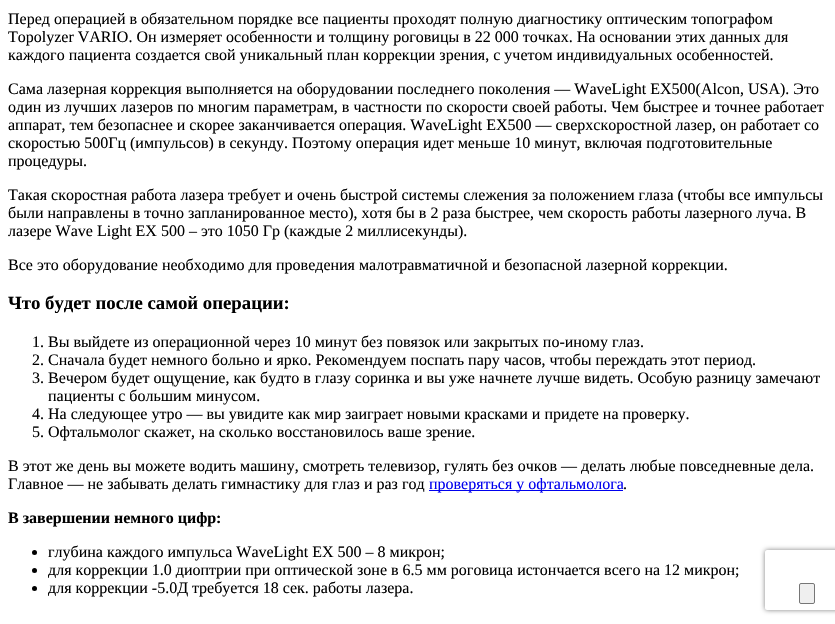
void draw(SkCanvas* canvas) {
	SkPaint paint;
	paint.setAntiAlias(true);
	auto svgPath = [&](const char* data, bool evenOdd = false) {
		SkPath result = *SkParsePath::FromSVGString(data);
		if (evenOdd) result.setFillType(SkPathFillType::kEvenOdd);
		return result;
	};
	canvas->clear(0xffffffff);
	SkFont f1(fontMgr->matchFamilyStyle("Liberation Serif", SkFontStyle::Normal()), 16);
	f1.setSubpixel(true);
	paint.setColor(0xff000000);
	canvas->drawString("Перед операцией в обязательном порядке все пациенты проходят полную диагностику оптическим топографом", 8, 24, f1, paint);
	canvas->drawString("Topolyzer VARIO. Он измеряет особенности и толщину роговицы в 22 000 точках. На основании этих данных для", 8, 42, f1, paint);
	canvas->drawString("каждого пациента создается свой уникальный план коррекции зрения, с учетом индивидуальных особенностей.", 8, 60, f1, paint);
	canvas->drawString("Сама лазерная коррекция выполняется на оборудовании последнего поколения — WaveLight EX500(Alcon, USA). Это", 8, 94, f1, paint);
	canvas->drawString("один из лучших лазеров по многим параметрам, в частности по скорости своей работы. Чем быстрее и точнее работает", 8, 112, f1, paint);
	canvas->drawString("аппарат, тем безопаснее и скорее заканчивается операция. WaveLight EX500 — сверхскоростной лазер, он работает со", 8, 130, f1, paint);
	canvas->drawString("скоростью 500Гц (импульсов) в секунду. Поэтому операция идет меньше 10 минут, включая подготовительные", 8, 148, f1, paint);
	canvas->drawString("процедуры.", 8, 166, f1, paint);
	canvas->drawString("Такая скоростная работа лазера требует и очень быстрой системы слежения за положением глаза (чтобы все импульсы", 8, 200, f1, paint);
	canvas->drawString("были направлены в точно запланированное место), хотя бы в 2 раза быстрее, чем скорость работы лазерного луча. В", 8, 218, f1, paint);
	canvas->drawString("лазере Wave Light EX 500 – это 1050 Гр (каждые 2 миллисекунды).", 8, 236, f1, paint);
	canvas->drawString("Все это оборудование необходимо для проведения малотравматичной и безопасной лазерной коррекции.", 8, 270, f1, paint);
	SkFont f2(fontMgr->matchFamilyStyle("Liberation Serif", SkFontStyle::Bold()), 18.75);
	f2.setSubpixel(true);
	canvas->drawString("Что будет после самой операции:", 8, 309, f2, paint);
	canvas->drawString("1. Вы выйдете из операционной через 10 минут без повязок или закрытых по-иному глаз.", 32, 347, f1, paint);
	canvas->drawString("2. Сначала будет немного больно и ярко. Рекомендуем поспать пару часов, чтобы переждать этот период.", 32, 365, f1, paint);
	canvas->drawString("3. Вечером будет ощущение, как будто в глазу соринка и вы уже начнете лучше видеть. Особую разницу замечают", 32, 383, f1, paint);
	canvas->drawString("пациенты с большим минусом.", 48, 401, f1, paint);
	canvas->drawString("4. На следующее утро — вы увидите как мир заиграет новыми красками и придете на проверку.", 32, 419, f1, paint);
	canvas->drawString("5. Офтальмолог скажет, на сколько восстановилось ваше зрение.", 32, 437, f1, paint);
	canvas->drawString("В этот же день вы можете водить машину, смотреть телевизор, гулять без очков — делать любые повседневные дела.", 8, 471, f1, paint);
	canvas->drawString("Главное — не забывать делать гимнастику для глаз и раз год", 8, 489, f1, paint);
	paint.setColor(0xff0000ee);
	canvas->drawRect(SkRect::MakeXYWH(429, 490, 194, 1), paint);
	canvas->drawString("проверяться у офтальмолога", 429, 489, f1, paint);
	paint.setColor(0xff000000);
	canvas->drawString(".", 623, 489, f1, paint);
	SkFont f3(fontMgr->matchFamilyStyle("Liberation Serif", SkFontStyle::Bold()), 16);
	f3.setSubpixel(true);
	canvas->drawString("В завершении немного цифр:", 8, 523, f3, paint);
	canvas->drawCircle(34.5, 552.5, 2.5, paint);
	canvas->drawString("глубина каждого импульса WaveLight EX 500 – 8 микрон;", 48, 557, f1, paint);
	canvas->drawCircle(34.5, 570.5, 2.5, paint);
	canvas->drawString("для коррекции 1.0 диоптрии при оптической зоне в 6.5 мм роговица истончается всего на 12 микрон;", 48, 575, f1, paint);
	canvas->drawCircle(34.5, 588.5, 2.5, paint);
	canvas->drawString("для коррекции -5.0Д требуется 18 сек. работы лазера.", 48, 593, f1, paint);
	paint.setColor(0xffefefef);
	canvas->drawRoundRect(SkRect::MakeXYWH(799.5, 583.5, 15, 20), 1.5, 1.5, paint);
	paint.setStroke(true);
	paint.setStrokeWidth(1);
	paint.setColor(0xff767676);
	canvas->drawRoundRect(SkRect::MakeXYWH(799.5, 583.5, 15, 20), 1.5, 1.5, paint);
	canvas->save();
	canvas->clipPath(svgPath("M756 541H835V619H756ZM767 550H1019C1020 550 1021 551 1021 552V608C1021 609 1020 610 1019 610H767C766 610 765 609 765 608V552C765 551 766 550 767 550Z", true), true);
	paint.setStroke(false);
	paint.setColor(0xff808080);
	paint.setMaskFilter(SkMaskFilter::MakeBlur(kNormal_SkBlurStyle, 2.5));
	canvas->drawRoundRect(SkRect::MakeXYWH(765, 550, 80, 60), 2, 2, paint);
	paint.setMaskFilter(nullptr);
	canvas->restore();
}
